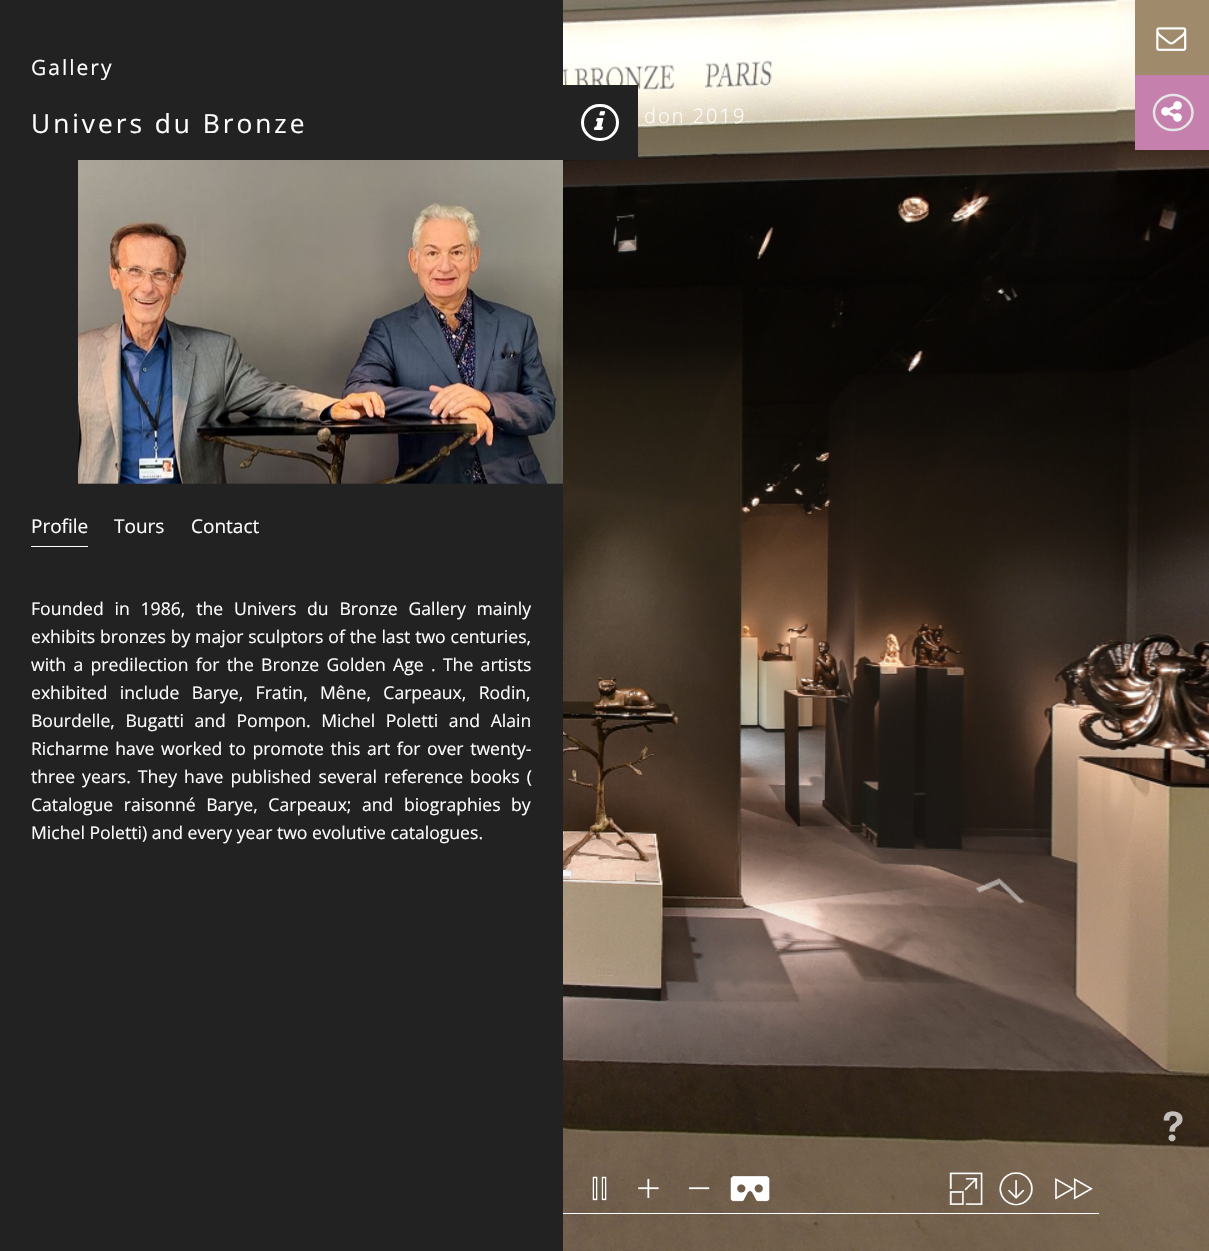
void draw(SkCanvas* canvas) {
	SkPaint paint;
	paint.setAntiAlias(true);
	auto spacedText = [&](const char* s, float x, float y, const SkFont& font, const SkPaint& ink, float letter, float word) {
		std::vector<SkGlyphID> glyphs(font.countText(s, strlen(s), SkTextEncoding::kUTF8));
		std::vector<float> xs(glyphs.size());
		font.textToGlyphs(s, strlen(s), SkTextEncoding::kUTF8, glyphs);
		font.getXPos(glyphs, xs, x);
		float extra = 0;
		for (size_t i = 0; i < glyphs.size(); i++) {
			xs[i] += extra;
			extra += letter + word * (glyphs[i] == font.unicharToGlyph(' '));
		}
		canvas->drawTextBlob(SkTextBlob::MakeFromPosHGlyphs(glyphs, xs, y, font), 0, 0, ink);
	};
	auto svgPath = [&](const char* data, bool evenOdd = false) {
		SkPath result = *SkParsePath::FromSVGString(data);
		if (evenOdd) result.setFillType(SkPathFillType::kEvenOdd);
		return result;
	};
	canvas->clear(0xffffffff);
	canvas->drawImageRect(SkImages::DeferredFromEncodedData(SkData::MakeFromFileName("img1.png")), SkRect::MakeXYWH(563, 0, 646, 1251), SkSamplingOptions());
	canvas->drawImageRect(SkImages::DeferredFromEncodedData(SkData::MakeFromFileName("img2.png")), SkRect::MakeXYWH(592, 1176, 15, 25), SkSamplingOptions());
	canvas->drawImageRect(SkImages::DeferredFromEncodedData(SkData::MakeFromFileName("img3.png")), SkRect::MakeXYWH(638, 1178, 21, 20), SkSamplingOptions());
	canvas->drawImageRect(SkImages::DeferredFromEncodedData(SkData::MakeFromFileName("img4.png")), SkRect::MakeXYWH(688, 1187, 22, 3), SkSamplingOptions());
	canvas->drawImageRect(SkImages::DeferredFromEncodedData(SkData::MakeFromFileName("img5.png")), SkRect::MakeXYWH(730, 1176, 40, 26), SkSamplingOptions());
	canvas->drawImageRect(SkImages::DeferredFromEncodedData(SkData::MakeFromFileName("img6.png")), SkRect::MakeXYWH(949, 1172, 34, 33), SkSamplingOptions());
	canvas->drawImageRect(SkImages::DeferredFromEncodedData(SkData::MakeFromFileName("img7.png")), SkRect::MakeXYWH(999, 1172, 34, 34), SkSamplingOptions());
	canvas->drawImageRect(SkImages::DeferredFromEncodedData(SkData::MakeFromFileName("img8.png")), SkRect::MakeXYWH(1055, 1178, 38, 22), SkSamplingOptions());
	paint.setColor(0xffffffff);
	canvas->drawRect(SkRect::MakeXYWH(563, 1213, 536, 1), paint);
	paint.setColor(0xff222222);
	canvas->drawRect(SkRect::MakeXYWH(0, 0, 563, 1251), paint);
	SkFont f1(fontMgr->matchFamilyStyle("Open Sans", SkFontStyle::Normal()), 21);
	f1.setSubpixel(true);
	paint.setColor(0xffffffff);
	spacedText("Gallery", 31, 75, f1, paint, 2, 0);
	paint.setColor(0xff222222);
	canvas->drawRect(SkRect::MakeXYWH(563, 85, 75, 75), paint);
	SkFont f2(fontMgr->matchFamilyStyle("Open Sans", SkFontStyle::Normal()), 26.25);
	f2.setSubpixel(true);
	paint.setColor(0xffffffff);
	spacedText("Univers du Bronze", 31, 133, f2, paint, 3, 0);
	paint.setStroke(true);
	paint.setStrokeWidth(3);
	canvas->drawRoundRect(SkRect::MakeXYWH(582.5, 105.5, 35, 34), 17, 17, paint);
	canvas->drawImageRect(SkImages::DeferredFromEncodedData(SkData::MakeFromFileName("img9.png")), SkRect::MakeXYWH(594, 111, 12, 19), SkSamplingOptions());
	canvas->drawImageRect(SkImages::DeferredFromEncodedData(SkData::MakeFromFileName("img10.png")), SkRect::MakeXYWH(78, 160, 485, 324), SkSamplingOptions());
	paint.setStroke(false);
	canvas->drawRect(SkRect::MakeXYWH(31, 546, 57, 1), paint);
	SkFont f3(fontMgr->matchFamilyStyle("Open Sans", SkFontStyle::Normal()), 19);
	f3.setSubpixel(true);
	canvas->drawString("Profile", 31, 533, f3, paint);
	canvas->drawString("Tours", 114, 533, f3, paint);
	canvas->drawString("Contact", 191, 533, f3, paint);
	SkFont f4(fontMgr->matchFamilyStyle("Open Sans", SkFontStyle::Normal()), 17.6);
	f4.setSubpixel(true);
	spacedText("Founded in 1986, the Univers du Bronze Gallery mainly", 31, 615, f4, paint, 0, 6.25);
	spacedText("exhibits bronzes by major sculptors of the last two centuries,", 31, 643, f4, paint, 0, 0.25);
	spacedText("with a predilection for the Bronze Golden Age . The artists", 31, 671, f4, paint, 0, 2.75);
	spacedText("exhibited include Barye, Fratin, Mêne, Carpeaux, Rodin,", 31, 699, f4, paint, 0, 7.75);
	spacedText("Bourdelle, Bugatti and Pompon. Michel Poletti and Alain", 31, 727, f4, paint, 0, 6);
	spacedText("Richarme have worked to promote this art for over twenty-", 31, 755, f4, paint, 0, 2);
	spacedText("three years. They have published several reference books (", 31, 783, f4, paint, 0, 2.5);
	spacedText("Catalogue raisonné Barye, Carpeaux;", 31, 811, f4, paint, 0, 6);
	spacedText("and biographies by", 362, 811, f4, paint, 0, 6);
	canvas->drawString("Michel Poletti) and every year two evolutive catalogues.", 31, 839, f4, paint);
	SkFont f5(fontMgr->matchFamilyStyle("Open Sans", SkFontStyle(300, SkFontStyle::kNormal_Width, SkFontStyle::kUpright_Slant)), 20);
	f5.setSubpixel(true);
	spacedText("don 2019", 644, 123, f5, paint, 2, 0);
	paint.setColor(0xff9f8b6c);
	canvas->drawRect(SkRect::MakeXYWH(1135, 0, 74, 75), paint);
	canvas->drawImageRect(SkImages::DeferredFromEncodedData(SkData::MakeFromFileName("img11.png")), SkRect::MakeXYWH(1156, 27, 31, 24), SkSamplingOptions());
	paint.setColor(0xffdc8fc1);
	canvas->drawRect(SkRect::MakeXYWH(1135, 75, 74, 75), paint);
	paint.setStroke(true);
	paint.setStrokeWidth(2.5);
	paint.setColor(0xffffffff);
	canvas->drawPath(svgPath("M1173 95C1184 95 1192.5 103 1192.5 112.5C1192.5 122 1184 130 1173 130C1162.5 130 1154 122 1154 112.5C1154 103 1162.5 95 1173 95Z"), paint);
	paint.setStroke(false);
	paint.setColor(0x1a000000);
	canvas->drawRect(SkRect::MakeXYWH(1135, 75, 74, 75), paint);
	canvas->drawImageRect(SkImages::DeferredFromEncodedData(SkData::MakeFromFileName("img12.png")), SkRect::MakeXYWH(1161, 101, 21, 21), SkSamplingOptions());
	canvas->drawImageRect(SkImages::DeferredFromEncodedData(SkData::MakeFromFileName("img13.png")), SkRect::MakeXYWH(1163, 1111, 20, 31), SkSamplingOptions());
}
